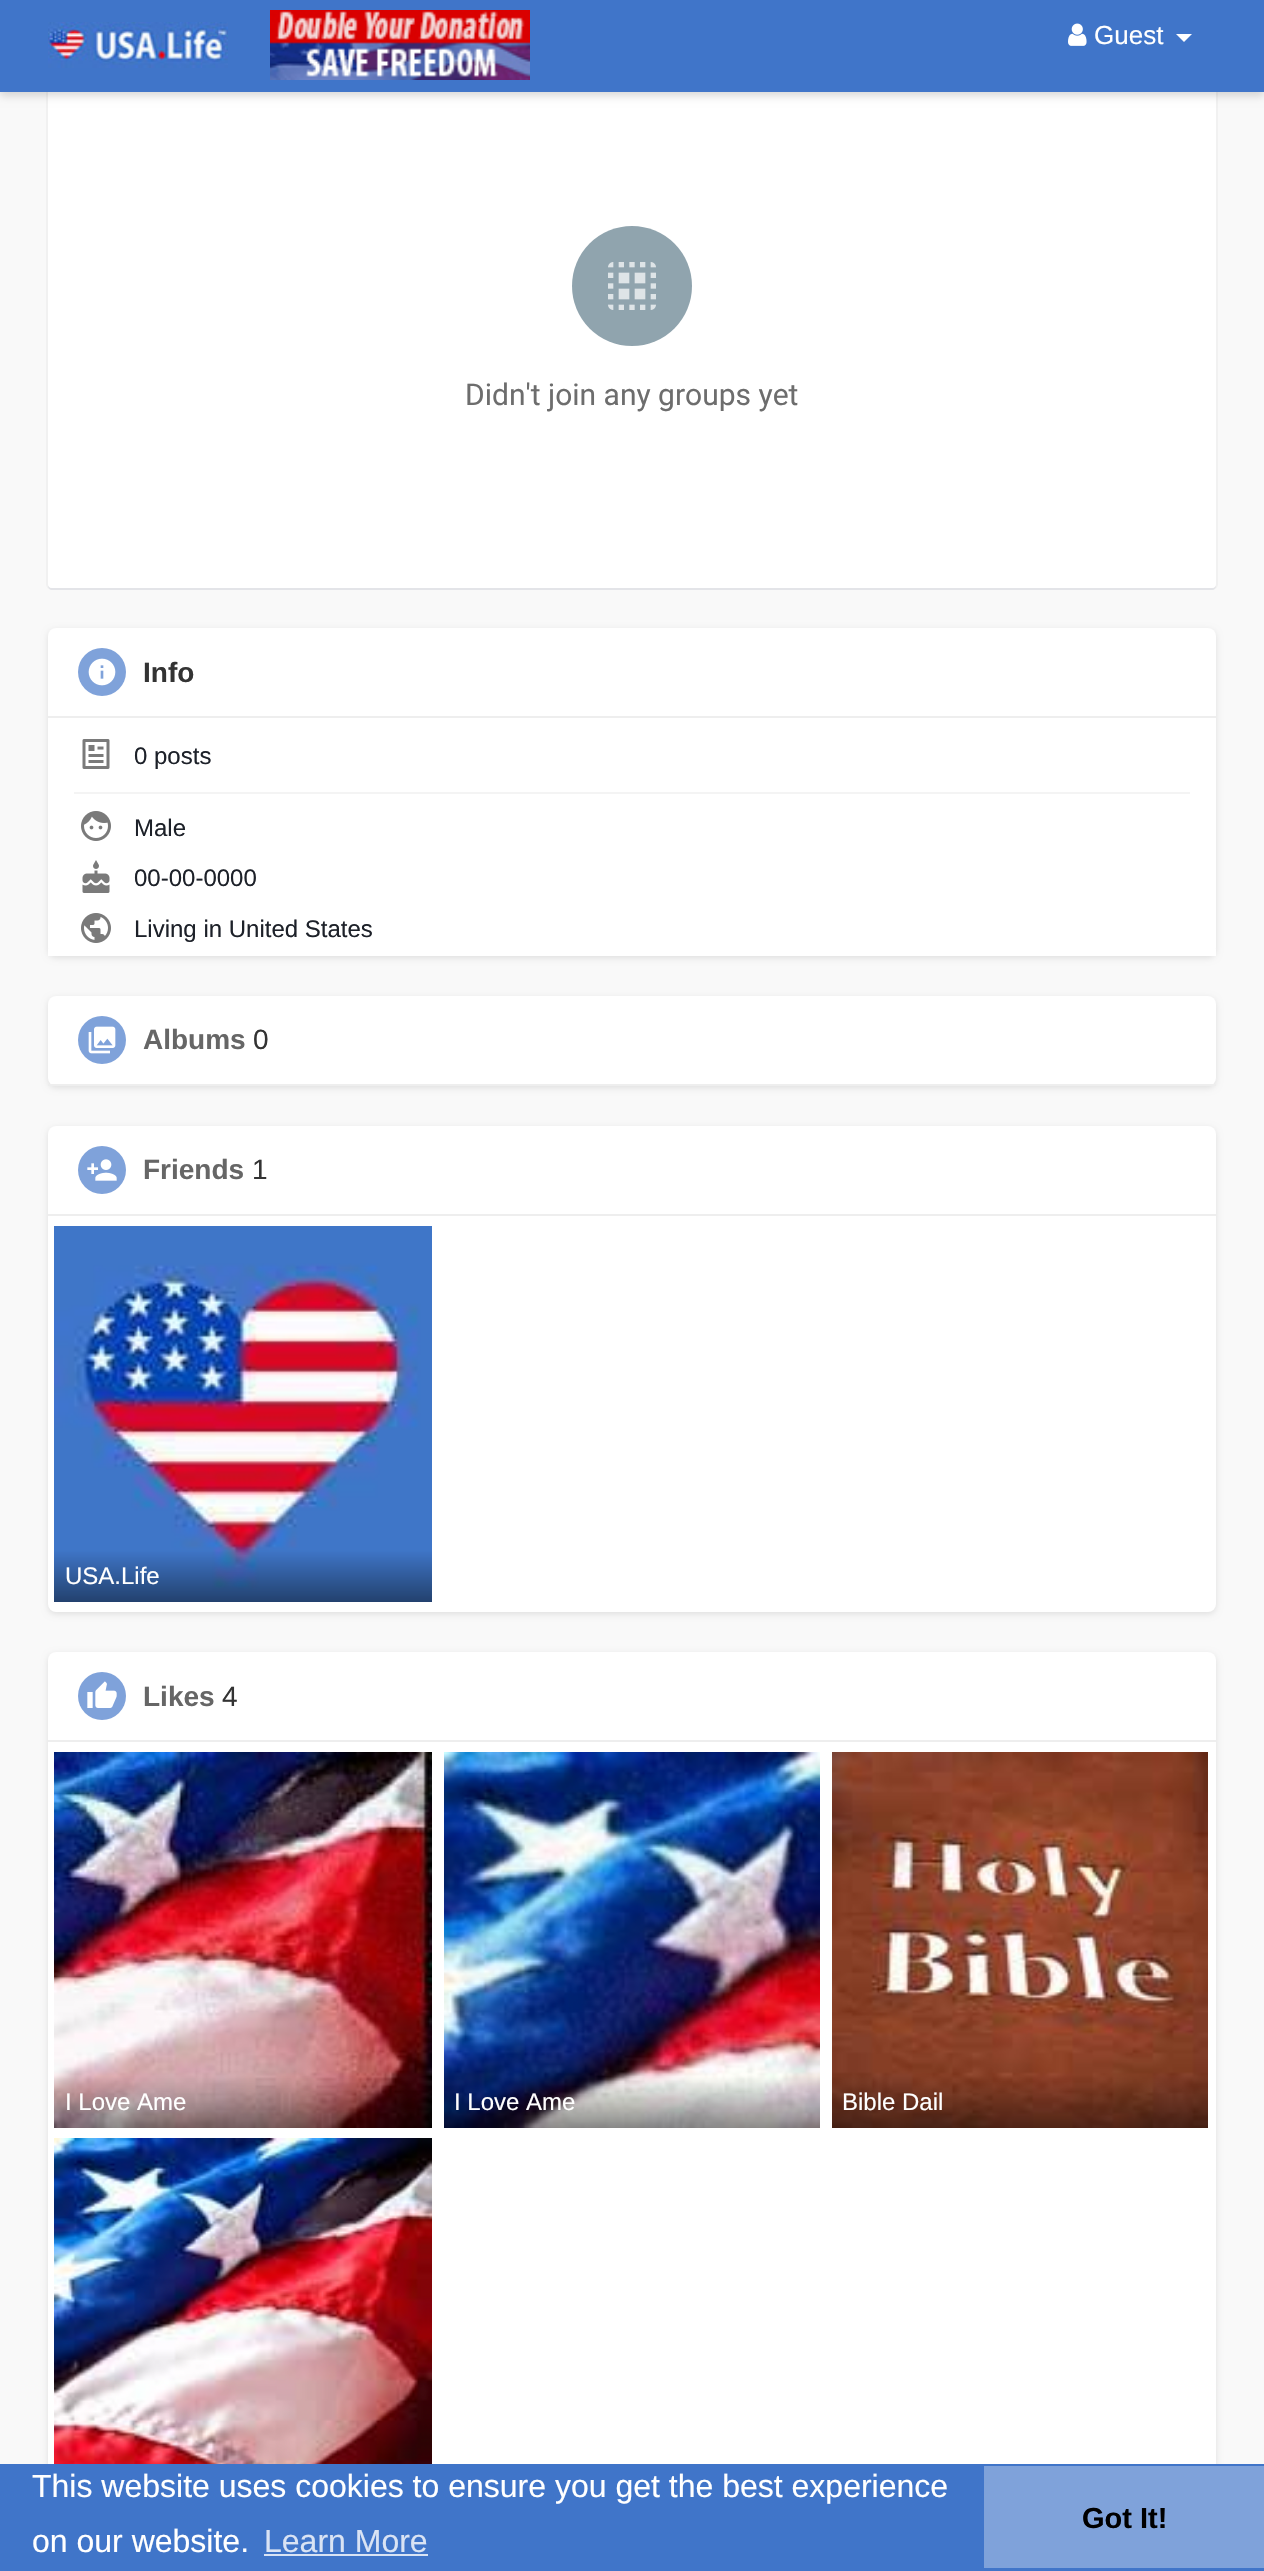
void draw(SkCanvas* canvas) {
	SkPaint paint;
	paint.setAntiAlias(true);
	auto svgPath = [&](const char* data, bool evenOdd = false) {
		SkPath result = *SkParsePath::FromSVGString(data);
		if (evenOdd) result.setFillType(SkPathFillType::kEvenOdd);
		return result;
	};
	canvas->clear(0xfff9f9f9);
	paint.setStroke(true);
	paint.setStrokeWidth(2);
	paint.setColor(0xfff1f1f1);
	canvas->drawRoundRect(SkRect::MakeXYWH(47, 55, 1170, 534), 5, 5, paint);
	paint.setStroke(false);
	paint.setColor(0xffe3e4e8);
	canvas->drawPath(svgPath("M48 584V586C48 588 50 590 52 590H1212C1214 590 1216 588 1216 586V584C1216 586 1214 588 1212 588H52C50 588 48 586 48 584Z"), paint);
	paint.setColor(0xffffffff);
	canvas->drawRoundRect(SkRect::MakeXYWH(48, 56, 1168, 532), 4, 4, paint);
	paint.setColor(0x26000000);
	paint.setMaskFilter(SkMaskFilter::MakeBlur(kNormal_SkBlurStyle, 4));
	canvas->drawRect(SkRect::MakeXYWH(0, 4, 1264, 92), paint);
	paint.setMaskFilter(nullptr);
	paint.setColor(0xff4075c9);
	canvas->drawRect(SkRect::MakeXYWH(0, 0, 1264, 92), paint);
	canvas->drawImageRect(SkImages::DeferredFromEncodedData(SkData::MakeFromFileName("img1.png")), SkRect::MakeXYWH(48, 22, 180, 46), SkSamplingOptions());
	canvas->drawImageRect(SkImages::DeferredFromEncodedData(SkData::MakeFromFileName("img2.png")), SkRect::MakeXYWH(270, 10, 260, 70), SkSamplingOptions());
	canvas->drawImageRect(SkImages::DeferredFromEncodedData(SkData::MakeFromFileName("img3.png")), SkRect::MakeXYWH(1068, 23, 19, 23), SkSamplingOptions());
	SkFont f1(fontMgr->matchFamilyStyle("Liberation Sans", SkFontStyle::Normal()), 26);
	f1.setSubpixel(true);
	paint.setColor(0xffffffff);
	canvas->drawString("Guest", 1094, 44, f1, paint);
	canvas->drawPath(svgPath("M1176 34H1192L1184 42Z"), paint);
	paint.setColor(0xff90a4ae);
	canvas->drawCircle(632, 286, 60, paint);
	canvas->drawImageRect(SkImages::DeferredFromEncodedData(SkData::MakeFromFileName("img4.png")), SkRect::MakeXYWH(608, 262, 48, 48), SkSamplingOptions());
	SkFont f2(fontMgr->matchFamilyStyle("Roboto", SkFontStyle::Normal()), 30);
	f2.setSubpixel(true);
	paint.setColor(0xff6d6d6d);
	canvas->drawString("Didn't join any groups yet", 465, 405, f2, paint);
	paint.setColor(0x1a000000);
	paint.setMaskFilter(SkMaskFilter::MakeBlur(kNormal_SkBlurStyle, 3));
	canvas->drawRoundRect(SkRect::MakeXYWH(48, 630, 1168, 328), 8, 8, paint);
	paint.setMaskFilter(nullptr);
	paint.setColor(0xffffffff);
	canvas->drawRoundRect(SkRect::MakeXYWH(48, 628, 1168, 328), 8, 8, paint);
	paint.setColor(0xffeeeeee);
	canvas->drawRect(SkRect::MakeXYWH(48, 716, 1168, 2), paint);
	paint.setColor(0xff7fa2da);
	canvas->drawCircle(102, 672, 24, paint);
	canvas->drawImageRect(SkImages::DeferredFromEncodedData(SkData::MakeFromFileName("img5.png")), SkRect::MakeXYWH(88, 658, 28, 28), SkSamplingOptions());
	SkFont f3(fontMgr->matchFamilyStyle("Liberation Sans", SkFontStyle::Bold()), 28);
	f3.setSubpixel(true);
	paint.setColor(0xff333333);
	canvas->drawString("Info", 143, 682, f3, paint);
	canvas->drawImageRect(SkImages::DeferredFromEncodedData(SkData::MakeFromFileName("img6.png")), SkRect::MakeXYWH(82, 739, 28, 30), SkSamplingOptions());
	SkFont f4(fontMgr->matchFamilyStyle("Liberation Sans", SkFontStyle::Normal()), 24);
	f4.setSubpixel(true);
	paint.setColor(0xff1d2129);
	canvas->drawString("0 posts", 134, 764, f4, paint);
	paint.setColor(0xfff4f4f4);
	canvas->drawRect(SkRect::MakeXYWH(74, 792, 1116, 2), paint);
	canvas->drawImageRect(SkImages::DeferredFromEncodedData(SkData::MakeFromFileName("img7.png")), SkRect::MakeXYWH(81, 811, 30, 30), SkSamplingOptions());
	paint.setColor(0xff1d2129);
	canvas->drawString("Male", 134, 836, f4, paint);
	canvas->drawImageRect(SkImages::DeferredFromEncodedData(SkData::MakeFromFileName("img8.png")), SkRect::MakeXYWH(82, 860, 28, 33), SkSamplingOptions());
	canvas->drawString("00-00-0000", 134, 886, f4, paint);
	paint.setColor(0xffffffff);
	canvas->drawRect(SkRect::MakeXYWH(48, 949, 1168, 7), paint);
	canvas->drawImageRect(SkImages::DeferredFromEncodedData(SkData::MakeFromFileName("img9.png")), SkRect::MakeXYWH(81, 913, 30, 30), SkSamplingOptions());
	paint.setColor(0xff1d2129);
	canvas->drawString("Living in United States", 134, 937, f4, paint);
	paint.setColor(0x1a000000);
	paint.setMaskFilter(SkMaskFilter::MakeBlur(kNormal_SkBlurStyle, 3));
	canvas->drawRoundRect(SkRect::MakeXYWH(48, 998, 1168, 90), 8, 8, paint);
	paint.setMaskFilter(nullptr);
	paint.setColor(0xffffffff);
	canvas->drawRoundRect(SkRect::MakeXYWH(48, 996, 1168, 90), 8, 8, paint);
	paint.setColor(0xffeeeeee);
	canvas->drawRect(SkRect::MakeXYWH(48, 1084, 1168, 2), paint);
	paint.setColor(0xff7fa2da);
	canvas->drawCircle(102, 1040, 24, paint);
	canvas->drawImageRect(SkImages::DeferredFromEncodedData(SkData::MakeFromFileName("img10.png")), SkRect::MakeXYWH(88, 1026, 28, 28), SkSamplingOptions());
	paint.setColor(0xff666666);
	canvas->drawString("Albums", 143, 1049, f3, paint);
	SkFont f5(fontMgr->matchFamilyStyle("Liberation Sans", SkFontStyle::Normal()), 28);
	f5.setSubpixel(true);
	paint.setColor(0xff333333);
	canvas->drawString("0", 253, 1049, f5, paint);
	paint.setColor(0x1a000000);
	paint.setMaskFilter(SkMaskFilter::MakeBlur(kNormal_SkBlurStyle, 3));
	canvas->drawRoundRect(SkRect::MakeXYWH(48, 1128, 1168, 486), 8, 8, paint);
	paint.setMaskFilter(nullptr);
	paint.setColor(0xffffffff);
	canvas->drawRoundRect(SkRect::MakeXYWH(48, 1126, 1168, 486), 8, 8, paint);
	paint.setColor(0xffeeeeee);
	canvas->drawRect(SkRect::MakeXYWH(48, 1214, 1168, 2), paint);
	paint.setColor(0xff7fa2da);
	canvas->drawCircle(102, 1170, 24, paint);
	canvas->drawImageRect(SkImages::DeferredFromEncodedData(SkData::MakeFromFileName("img11.png")), SkRect::MakeXYWH(87, 1159, 30, 22), SkSamplingOptions());
	paint.setColor(0xff666666);
	canvas->drawString("Friends", 143, 1179, f3, paint);
	paint.setColor(0xff333333);
	canvas->drawString("1", 252, 1179, f5, paint);
	canvas->drawImageRect(SkImages::DeferredFromEncodedData(SkData::MakeFromFileName("img12.png")), SkRect::MakeXYWH(54, 1226, 378, 376), SkSamplingOptions());
	paint.setColor(0xffffffff);
	canvas->drawString("USA.Life", 65, 1584, f4, paint);
	paint.setColor(0x1a000000);
	paint.setMaskFilter(SkMaskFilter::MakeBlur(kNormal_SkBlurStyle, 3));
	canvas->drawRoundRect(SkRect::MakeXYWH(48, 1654, 1168, 874), 8, 8, paint);
	paint.setMaskFilter(nullptr);
	paint.setColor(0xffffffff);
	canvas->drawRoundRect(SkRect::MakeXYWH(48, 1652, 1168, 874), 8, 8, paint);
	paint.setColor(0xffeeeeee);
	canvas->drawRect(SkRect::MakeXYWH(48, 1740, 1168, 2), paint);
	paint.setColor(0xff7fa2da);
	canvas->drawCircle(102, 1696, 24, paint);
	canvas->drawImageRect(SkImages::DeferredFromEncodedData(SkData::MakeFromFileName("img13.png")), SkRect::MakeXYWH(87, 1681, 30, 27), SkSamplingOptions());
	paint.setColor(0xff666666);
	canvas->drawString("Likes", 143, 1706, f3, paint);
	paint.setColor(0xff333333);
	canvas->drawString("4", 222, 1706, f5, paint);
	canvas->drawImageRect(SkImages::DeferredFromEncodedData(SkData::MakeFromFileName("img14.png")), SkRect::MakeXYWH(54, 1752, 378, 376), SkSamplingOptions());
	paint.setColor(0xffffffff);
	canvas->drawString("I Love Ame", 65, 2110, f4, paint);
	canvas->drawImageRect(SkImages::DeferredFromEncodedData(SkData::MakeFromFileName("img15.png")), SkRect::MakeXYWH(444, 1752, 376, 376), SkSamplingOptions());
	canvas->drawString("I Love Ame", 454, 2110, f4, paint);
	canvas->drawImageRect(SkImages::DeferredFromEncodedData(SkData::MakeFromFileName("img16.png")), SkRect::MakeXYWH(832, 1752, 376, 376), SkSamplingOptions());
	canvas->drawString("Bible Dail", 842, 2110, f4, paint);
	canvas->drawImageRect(SkImages::DeferredFromEncodedData(SkData::MakeFromFileName("img17.png")), SkRect::MakeXYWH(54, 2138, 378, 326), SkSamplingOptions());
	paint.setColor(0xff4075c9);
	canvas->drawRect(SkRect::MakeXYWH(0, 2464, 1264, 107), paint);
	SkFont f6(fontMgr->matchFamilyStyle("Liberation Sans", SkFontStyle::Normal()), 32);
	f6.setSubpixel(true);
	paint.setColor(0xffffffff);
	canvas->drawString("This website uses cookies to ensure you get the best experience", 32, 2497, f6, paint);
	canvas->drawString("on our website.", 32, 2552, f6, paint);
	paint.setColor(0xffd9e3f4);
	canvas->drawString("Learn More", 264, 2552, f6, paint);
	canvas->drawRect(SkRect::MakeXYWH(264, 2554, 164, 2), paint);
	paint.setColor(0xff7fa2da);
	canvas->drawRect(SkRect::MakeXYWH(984, 2466, 280, 102), paint);
	SkFont f7(fontMgr->matchFamilyStyle("Liberation Sans", SkFontStyle::Bold()), 29);
	f7.setSubpixel(true);
	paint.setColor(0xff000000);
	canvas->drawString("Got It!", 1082, 2528, f7, paint);
}
